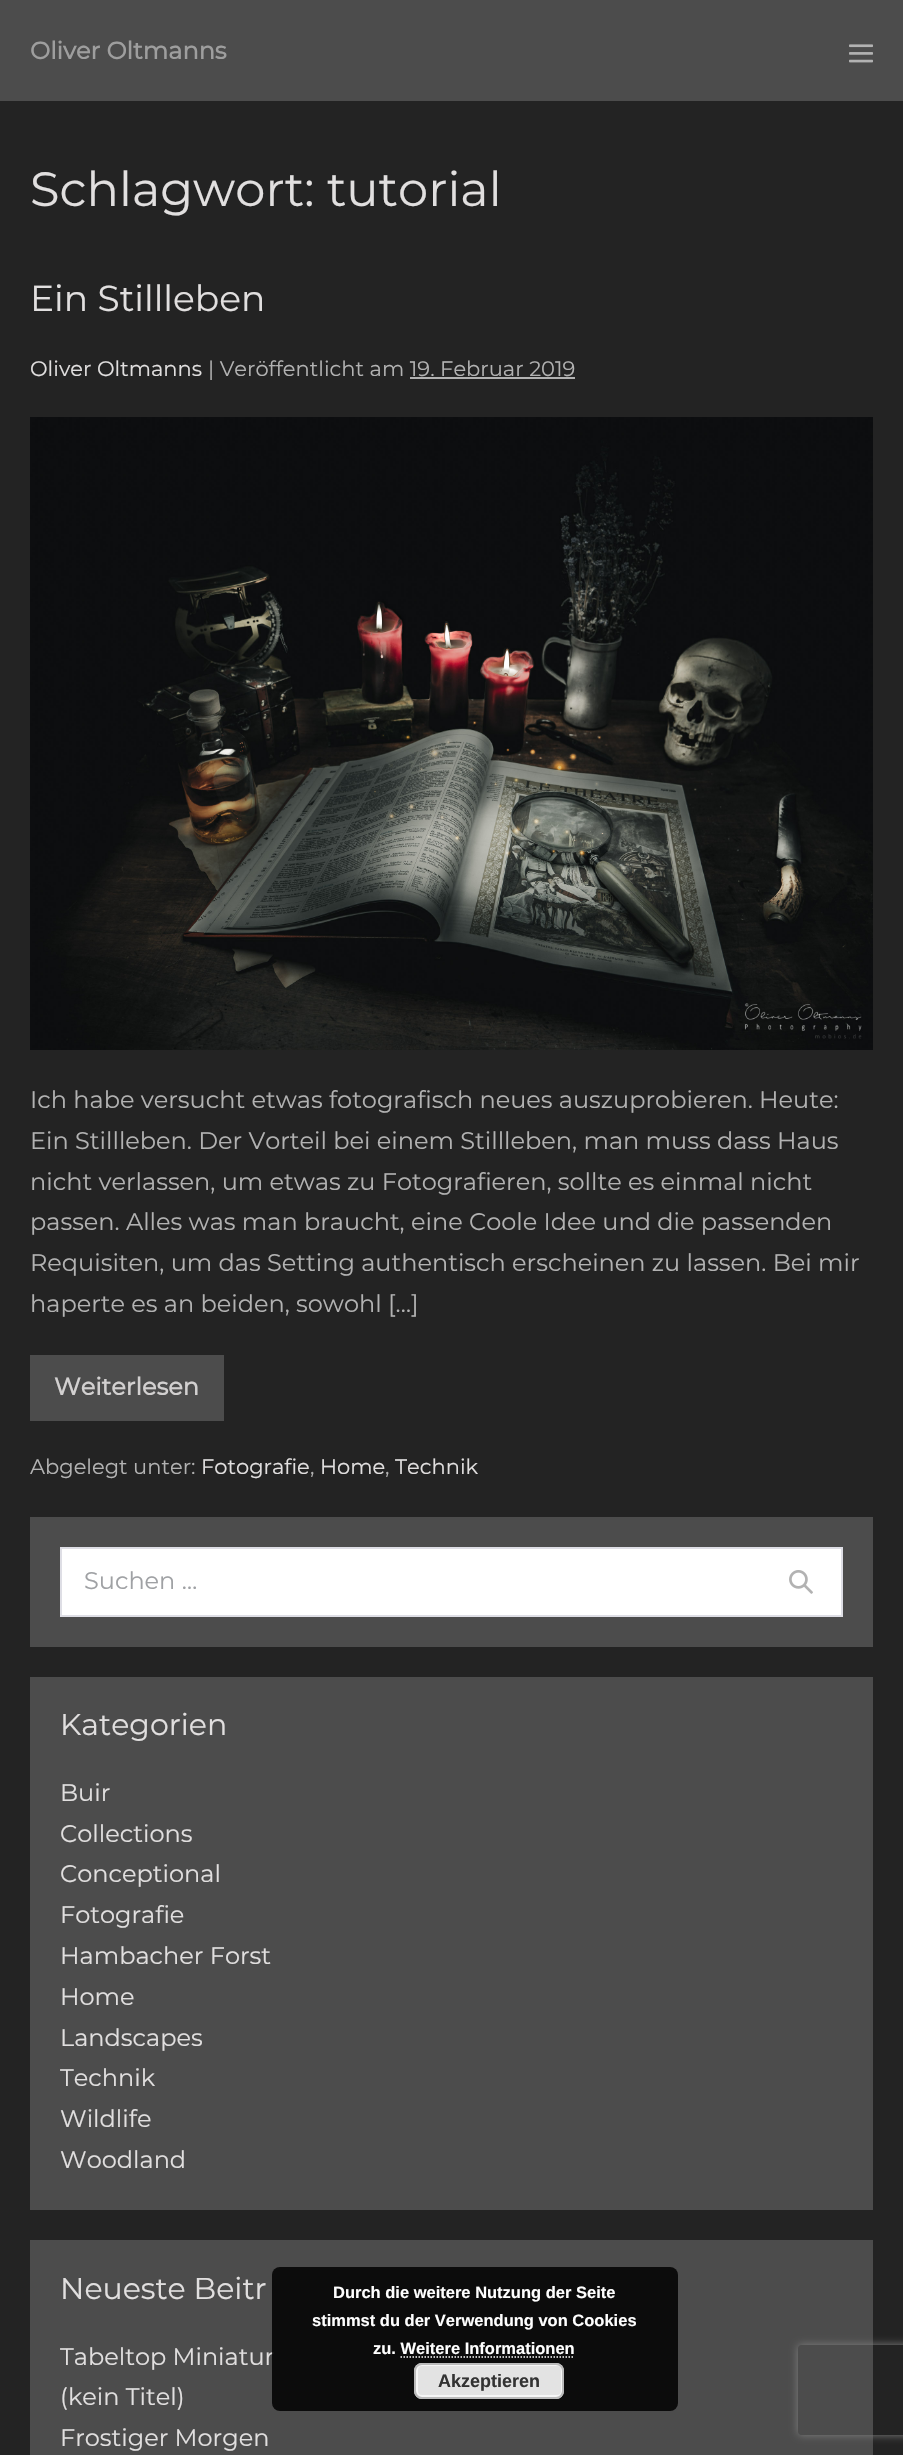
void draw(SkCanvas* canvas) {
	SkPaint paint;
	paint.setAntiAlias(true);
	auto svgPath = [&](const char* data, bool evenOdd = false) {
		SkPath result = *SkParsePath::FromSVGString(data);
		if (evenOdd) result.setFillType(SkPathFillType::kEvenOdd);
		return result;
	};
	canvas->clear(0xff232323);
	paint.setColor(0xff4c4c4c);
	canvas->drawRect(SkRect::MakeXYWH(0, 0, 903, 101), paint);
	SkFont f1(fontMgr->matchFamilyStyle("Montserrat", SkFontStyle::Bold()), 24);
	f1.setSubpixel(true);
	paint.setColor(0xff9e9e9e);
	canvas->drawString("Oliver Oltmanns", 30, 59, f1, paint);
	canvas->drawImageRect(SkImages::DeferredFromEncodedData(SkData::MakeFromFileName("img1.png")), SkRect::MakeXYWH(849, 44, 24, 19), SkSamplingOptions());
	SkFont f2(fontMgr->matchFamilyStyle("Montserrat", SkFontStyle(100, SkFontStyle::kNormal_Width, SkFontStyle::kUpright_Slant)), 48);
	f2.setSubpixel(true);
	paint.setColor(0xffe1dfdf);
	canvas->drawString("Schlagwort: tutorial", 30, 206, f2, paint);
	SkFont f3(fontMgr->matchFamilyStyle("Montserrat", SkFontStyle(100, SkFontStyle::kNormal_Width, SkFontStyle::kUpright_Slant)), 36);
	f3.setSubpixel(true);
	canvas->drawString("Ein Stillleben", 30, 311, f3, paint);
	SkFont f4(fontMgr->matchFamilyStyle("Montserrat", SkFontStyle(100, SkFontStyle::kNormal_Width, SkFontStyle::kUpright_Slant)), 21);
	f4.setSubpixel(true);
	canvas->drawString("Oliver Oltmanns", 30, 376, f4, paint);
	paint.setColor(0xffb2b2b2);
	canvas->drawString("| Veröffentlicht am 19. Februar 2019", 208, 376, f4, paint);
	canvas->drawRect(SkRect::MakeXYWH(410, 377, 165, 2), paint);
	canvas->drawImageRect(SkImages::DeferredFromEncodedData(SkData::MakeFromFileName("img2.png")), SkRect::MakeXYWH(30, 417, 843, 633), SkSamplingOptions());
	SkFont f5(fontMgr->matchFamilyStyle("Montserrat", SkFontStyle(100, SkFontStyle::kNormal_Width, SkFontStyle::kUpright_Slant)), 24);
	f5.setSubpixel(true);
	canvas->drawString("Ich habe versucht etwas fotografisch neues auszuprobieren. Heute:", 30, 1108, f5, paint);
	canvas->drawString("Ein Stillleben. Der Vorteil bei einem Stillleben, man muss dass Haus", 30, 1149, f5, paint);
	canvas->drawString("nicht verlassen, um etwas zu Fotografieren, sollte es einmal nicht", 30, 1190, f5, paint);
	canvas->drawString("passen. Alles was man braucht, eine Coole Idee und die passenden", 30, 1230, f5, paint);
	canvas->drawString("Requisiten, um das Setting authentisch erscheinen zu lassen. Bei mir", 30, 1271, f5, paint);
	canvas->drawString("haperte es an beiden, sowohl […]", 30, 1312, f5, paint);
	paint.setColor(0xff4c4c4c);
	canvas->drawRect(SkRect::MakeXYWH(30, 1355, 194, 66), paint);
	paint.setColor(0xffd2d0d0);
	canvas->drawString("Weiterlesen", 54, 1395, f1, paint);
	paint.setColor(0xffb2b2b2);
	canvas->drawString("Abgelegt unter:", 30, 1474, f4, paint);
	paint.setColor(0xffe1dfdf);
	canvas->drawString("Fotografie", 201, 1474, f4, paint);
	paint.setColor(0xffb2b2b2);
	canvas->drawString(",", 310, 1474, f4, paint);
	paint.setColor(0xffe1dfdf);
	canvas->drawString("Home", 320, 1474, f4, paint);
	paint.setColor(0xffb2b2b2);
	canvas->drawString(",", 385, 1474, f4, paint);
	paint.setColor(0xffe1dfdf);
	canvas->drawString("Technik", 395, 1474, f4, paint);
	paint.setColor(0xff4c4c4c);
	canvas->drawRect(SkRect::MakeXYWH(30, 1517, 843, 130), paint);
	paint.setColor(0xffffffff);
	canvas->drawRect(SkRect::MakeXYWH(61, 1548, 781, 68), paint);
	paint.setStroke(true);
	paint.setStrokeWidth(2);
	paint.setColor(0xffdedee5);
	canvas->drawRect(SkRect::MakeXYWH(61, 1548, 781, 68), paint);
	paint.setStroke(false);
	paint.setColor(0xff9fa1a4);
	canvas->drawString("Suchen …", 84, 1589, f5, paint);
	canvas->drawImageRect(SkImages::DeferredFromEncodedData(SkData::MakeFromFileName("img3.png")), SkRect::MakeXYWH(789, 1570, 24, 24), SkSamplingOptions());
	paint.setColor(0xff4c4c4c);
	canvas->drawRect(SkRect::MakeXYWH(30, 1677, 843, 533), paint);
	SkFont f6(fontMgr->matchFamilyStyle("Montserrat", SkFontStyle(100, SkFontStyle::kNormal_Width, SkFontStyle::kUpright_Slant)), 30);
	f6.setSubpixel(true);
	paint.setColor(0xffe1dfdf);
	canvas->drawString("Kategorien", 60, 1735, f6, paint);
	canvas->drawString("Buir", 60, 1801, f5, paint);
	canvas->drawString("Collections", 60, 1842, f5, paint);
	canvas->drawString("Conceptional", 60, 1882, f5, paint);
	canvas->drawString("Fotografie", 60, 1923, f5, paint);
	canvas->drawString("Hambacher Forst", 60, 1964, f5, paint);
	canvas->drawString("Home", 60, 2005, f5, paint);
	canvas->drawString("Landscapes", 60, 2046, f5, paint);
	canvas->drawString("Technik", 60, 2086, f5, paint);
	canvas->drawString("Wildlife", 60, 2127, f5, paint);
	canvas->drawString("Woodland", 60, 2168, f5, paint);
	paint.setColor(0xff4c4c4c);
	canvas->drawRect(SkRect::MakeXYWH(30, 2240, 843, 215), paint);
	paint.setColor(0xffe1dfdf);
	canvas->drawString("Neueste Beitr", 60, 2299, f6, paint);
	canvas->drawString("Tabeltop Miniatur", 60, 2365, f5, paint);
	canvas->drawString("(kein Titel)", 60, 2405, f5, paint);
	canvas->drawString("Frostiger Morgen", 60, 2446, f5, paint);
	paint.setColor(0xd9000000);
	canvas->drawRoundRect(SkRect::MakeXYWH(272, 2267, 406, 144), 8, 8, paint);
	SkFont f7(fontMgr->matchFamilyStyle("Liberation Sans", SkFontStyle::Bold()), 16.5);
	f7.setSubpixel(true);
	paint.setColor(0xffffffff);
	canvas->drawString("Durch die weitere Nutzung der Seite", 333, 2298, f7, paint);
	canvas->drawString("stimmst du der Verwendung von Cookies", 312, 2326, f7, paint);
	canvas->drawString("zu. Weitere Informationen", 373, 2354, f7, paint);
	paint.setStroke(true);
	paint.setStrokeWidth(1.5);
	paint.setPathEffect(SkDashPathEffect::Make({{1.5f, 1.5f}}, 0));
	canvas->drawPath(svgPath("M400.5 2357H574.5"), paint);
	paint.setPathEffect(nullptr);
	paint.setStroke(false);
	paint.setColor(0xffe3e3e3);
	canvas->drawRoundRect(SkRect::MakeXYWH(414, 2363, 150, 36), 8, 8, paint);
	paint.setStroke(true);
	paint.setStrokeWidth(2);
	paint.setColor(0xfff6f6f6);
	canvas->drawRoundRect(SkRect::MakeXYWH(417, 2365, 145, 31), 5, 5, paint);
	paint.setColor(0xffbbbbbb);
	canvas->drawRoundRect(SkRect::MakeXYWH(415, 2364, 148, 34), 7, 7, paint);
	SkFont f8(fontMgr->matchFamilyStyle("Liberation Sans", SkFontStyle::Bold()), 18);
	f8.setSubpixel(true);
	paint.setStroke(false);
	paint.setColor(0xff333333);
	canvas->drawString("Akzeptieren", 438, 2387, f8, paint);
	canvas->save();
	canvas->clipPath(svgPath("M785 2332H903V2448H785ZM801 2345H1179C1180.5 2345 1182 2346.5 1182 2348V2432C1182 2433.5 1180.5 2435 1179 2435H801C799.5 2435 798 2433.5 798 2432V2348C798 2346.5 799.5 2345 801 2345Z", true), true);
	paint.setColor(0xff808080);
	paint.setMaskFilter(SkMaskFilter::MakeBlur(kNormal_SkBlurStyle, 4));
	canvas->drawRoundRect(SkRect::MakeXYWH(798, 2345, 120, 90), 3, 3, paint);
	paint.setMaskFilter(nullptr);
	canvas->restore();
}
